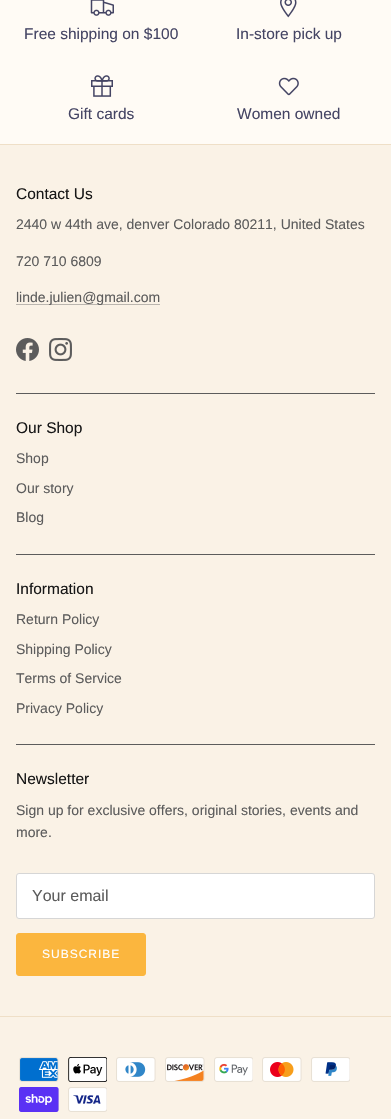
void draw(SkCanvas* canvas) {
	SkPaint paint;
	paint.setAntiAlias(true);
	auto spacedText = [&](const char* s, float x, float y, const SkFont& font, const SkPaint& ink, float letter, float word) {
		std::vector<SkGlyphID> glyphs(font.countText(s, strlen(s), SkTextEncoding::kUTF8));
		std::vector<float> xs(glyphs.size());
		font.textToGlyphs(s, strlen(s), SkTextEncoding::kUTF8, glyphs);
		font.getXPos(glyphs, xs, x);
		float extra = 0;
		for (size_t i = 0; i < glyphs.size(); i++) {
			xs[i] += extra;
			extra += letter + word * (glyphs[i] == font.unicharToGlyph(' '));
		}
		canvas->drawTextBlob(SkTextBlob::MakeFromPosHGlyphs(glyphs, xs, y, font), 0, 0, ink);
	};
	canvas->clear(0xfffffbf5);
	canvas->drawImageRect(SkImages::DeferredFromEncodedData(SkData::MakeFromFileName("img1.png")), SkRect::MakeXYWH(90, 0, 24, 16), SkSamplingOptions());
	SkFont f1(fontMgr->matchFamilyStyle("Arimo", SkFontStyle::Normal()), 15.5);
	f1.setSubpixel(true);
	paint.setColor(0xff454564);
	canvas->drawString("Free shipping on $100", 24, 39, f1, paint);
	canvas->drawImageRect(SkImages::DeferredFromEncodedData(SkData::MakeFromFileName("img2.png")), SkRect::MakeXYWH(280, 0, 17, 18), SkSamplingOptions());
	canvas->drawString("In-store pick up", 236, 39, f1, paint);
	canvas->drawImageRect(SkImages::DeferredFromEncodedData(SkData::MakeFromFileName("img3.png")), SkRect::MakeXYWH(91, 75, 22, 22), SkSamplingOptions());
	canvas->drawString("Gift cards", 68, 119, f1, paint);
	canvas->drawImageRect(SkImages::DeferredFromEncodedData(SkData::MakeFromFileName("img4.png")), SkRect::MakeXYWH(278, 77, 21, 19), SkSamplingOptions());
	canvas->drawString("Women owned", 237, 119, f1, paint);
	paint.setColor(0xfffaf2e6);
	canvas->drawRect(SkRect::MakeXYWH(0, 145, 391, 974), paint);
	paint.setColor(0xffefdfc7);
	canvas->drawRect(SkRect::MakeXYWH(0, 144, 391, 1), paint);
	paint.setColor(0xff5c5c5c);
	canvas->drawRect(SkRect::MakeXYWH(16, 393, 359, 1), paint);
	paint.setColor(0xff171717);
	canvas->drawString("Contact Us", 16, 199, f1, paint);
	SkFont f2(fontMgr->matchFamilyStyle("Arimo", SkFontStyle::Normal()), 14);
	f2.setSubpixel(true);
	paint.setColor(0xff5c5c5c);
	canvas->drawString("2440 w 44th ave, denver Colorado 80211, United States", 16, 229, f2, paint);
	canvas->drawString("720 710 6809", 16, 266, f2, paint);
	paint.setColor(0xffbbb6af);
	canvas->drawRect(SkRect::MakeXYWH(16, 304, 144, 1), paint);
	paint.setColor(0xff5c5c5c);
	canvas->drawString("linde.julien@gmail.com", 16, 302, f2, paint);
	canvas->drawImageRect(SkImages::DeferredFromEncodedData(SkData::MakeFromFileName("img5.png")), SkRect::MakeXYWH(16, 338, 23, 23), SkSamplingOptions());
	canvas->drawImageRect(SkImages::DeferredFromEncodedData(SkData::MakeFromFileName("img6.png")), SkRect::MakeXYWH(49, 338, 23, 23), SkSamplingOptions());
	canvas->drawRect(SkRect::MakeXYWH(16, 554, 359, 1), paint);
	paint.setColor(0xff171717);
	canvas->drawString("Our Shop", 16, 433, f1, paint);
	paint.setColor(0xff5c5c5c);
	canvas->drawString("Shop", 16, 463, f2, paint);
	canvas->drawString("Our story", 16, 493, f2, paint);
	canvas->drawString("Blog", 16, 522, f2, paint);
	canvas->drawRect(SkRect::MakeXYWH(16, 744, 359, 1), paint);
	paint.setColor(0xff171717);
	canvas->drawString("Information", 16, 594, f1, paint);
	paint.setColor(0xff5c5c5c);
	canvas->drawString("Return Policy", 16, 624, f2, paint);
	canvas->drawString("Shipping Policy", 16, 654, f2, paint);
	canvas->drawString("Terms of Service", 16, 683, f2, paint);
	canvas->drawString("Privacy Policy", 16, 713, f2, paint);
	paint.setColor(0xff171717);
	canvas->drawString("Newsletter", 16, 784, f1, paint);
	paint.setColor(0xff5c5c5c);
	canvas->drawString("Sign up for exclusive offers, original stories, events and", 16, 815, f2, paint);
	canvas->drawString("more.", 16, 837, f2, paint);
	paint.setColor(0xffffffff);
	canvas->drawRoundRect(SkRect::MakeXYWH(16.5, 873.5, 358, 45), 2.5, 2.5, paint);
	paint.setStroke(true);
	paint.setStrokeWidth(1);
	paint.setColor(0xffd6d6d6);
	canvas->drawRoundRect(SkRect::MakeXYWH(16.5, 873.5, 358, 45), 2.5, 2.5, paint);
	SkFont f3(fontMgr->matchFamilyStyle("Arimo", SkFontStyle::Normal()), 16);
	f3.setSubpixel(true);
	paint.setStroke(false);
	paint.setColor(0xff5c5c5c);
	canvas->drawString("Your email", 32, 901, f3, paint);
	paint.setColor(0xfffbb63e);
	canvas->drawRoundRect(SkRect::MakeXYWH(16.5, 933.5, 129, 42), 2.5, 2.5, paint);
	paint.setStroke(true);
	canvas->drawRoundRect(SkRect::MakeXYWH(16.5, 933.5, 129, 42), 2.5, 2.5, paint);
	SkFont f4(fontMgr->matchFamilyStyle("Arimo", SkFontStyle::Normal()), 12);
	f4.setSubpixel(true);
	paint.setStroke(false);
	paint.setColor(0xffffffff);
	spacedText("SUBSCRIBE", 42, 958, f4, paint, 1, 0);
	paint.setColor(0xffefdfc7);
	canvas->drawRect(SkRect::MakeXYWH(0, 1016, 391, 1), paint);
	canvas->drawImageRect(SkImages::DeferredFromEncodedData(SkData::MakeFromFileName("img7.png")), SkRect::MakeXYWH(19, 1057, 40, 25), SkSamplingOptions());
	canvas->drawImageRect(SkImages::DeferredFromEncodedData(SkData::MakeFromFileName("img8.png")), SkRect::MakeXYWH(68, 1057, 39, 25), SkSamplingOptions());
	canvas->drawImageRect(SkImages::DeferredFromEncodedData(SkData::MakeFromFileName("img9.png")), SkRect::MakeXYWH(116, 1057, 40, 25), SkSamplingOptions());
	canvas->drawImageRect(SkImages::DeferredFromEncodedData(SkData::MakeFromFileName("img10.png")), SkRect::MakeXYWH(165, 1057, 40, 25), SkSamplingOptions());
	canvas->drawImageRect(SkImages::DeferredFromEncodedData(SkData::MakeFromFileName("img11.png")), SkRect::MakeXYWH(214, 1057, 39, 25), SkSamplingOptions());
	canvas->drawImageRect(SkImages::DeferredFromEncodedData(SkData::MakeFromFileName("img12.png")), SkRect::MakeXYWH(262, 1057, 40, 25), SkSamplingOptions());
	canvas->drawImageRect(SkImages::DeferredFromEncodedData(SkData::MakeFromFileName("img13.png")), SkRect::MakeXYWH(311, 1057, 39, 25), SkSamplingOptions());
	canvas->drawImageRect(SkImages::DeferredFromEncodedData(SkData::MakeFromFileName("img14.png")), SkRect::MakeXYWH(19, 1087, 40, 25), SkSamplingOptions());
	canvas->drawImageRect(SkImages::DeferredFromEncodedData(SkData::MakeFromFileName("img15.png")), SkRect::MakeXYWH(68, 1087, 39, 25), SkSamplingOptions());
}
